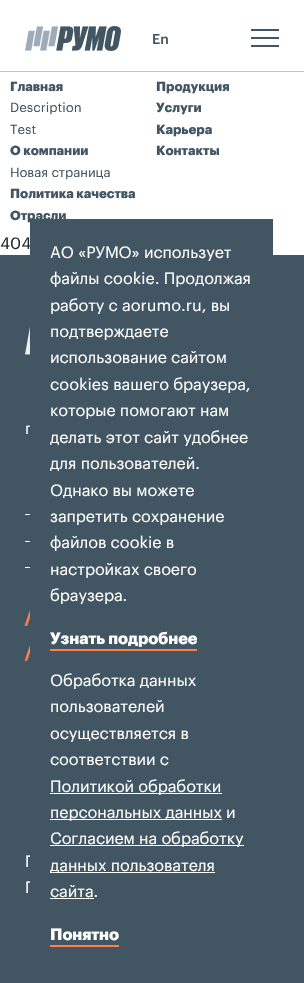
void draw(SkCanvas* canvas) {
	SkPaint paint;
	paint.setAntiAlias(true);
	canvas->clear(0xffffffff);
	paint.setColor(0xffc4c4c4);
	canvas->drawRect(SkRect::MakeXYWH(0, 71, 304, 1), paint);
	canvas->drawImageRect(SkImages::DeferredFromEncodedData(SkData::MakeFromFileName("img1.png")), SkRect::MakeXYWH(25, 26, 96, 25), SkSamplingOptions());
	SkFont f1(fontMgr->matchFamilyStyle("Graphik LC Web", SkFontStyle(500, SkFontStyle::kNormal_Width, SkFontStyle::kUpright_Slant)), 14);
	f1.setSubpixel(true);
	paint.setColor(0xff425563);
	canvas->drawString("En", 152, 44, f1, paint);
	canvas->drawRect(SkRect::MakeXYWH(251, 29, 28, 2), paint);
	canvas->drawRect(SkRect::MakeXYWH(251, 37, 28, 2), paint);
	canvas->drawRect(SkRect::MakeXYWH(251, 45, 28, 2), paint);
	SkFont f2(fontMgr->matchFamilyStyle("Graphik LC Web", SkFontStyle::Bold()), 13);
	f2.setSubpixel(true);
	canvas->drawString("Главная", 10, 91, f2, paint);
	SkFont f3(fontMgr->matchFamilyStyle("Graphik LC Web", SkFontStyle::Normal()), 13);
	f3.setSubpixel(true);
	canvas->drawString("Description", 10, 112, f3, paint);
	canvas->drawString("Test", 10, 134, f3, paint);
	canvas->drawString("О компании", 10, 155, f2, paint);
	canvas->drawString("Новая страница", 10, 177, f3, paint);
	canvas->drawString("Политика качества", 10, 198, f2, paint);
	canvas->drawString("Отрасли", 10, 220, f2, paint);
	canvas->drawString("Продукция", 156, 91, f2, paint);
	canvas->drawString("Услуги", 156, 112, f2, paint);
	canvas->drawString("Карьера", 156, 134, f2, paint);
	canvas->drawString("Контакты", 156, 155, f2, paint);
	SkFont f4(fontMgr->matchFamilyStyle("Graphik LC Web", SkFontStyle::Normal()), 16);
	f4.setSubpixel(true);
	paint.setColor(0xff212529);
	canvas->drawString("404", 0, 249, f4, paint);
	paint.setColor(0xff425563);
	canvas->drawRect(SkRect::MakeXYWH(0, 255, 304, 728), paint);
	canvas->drawImageRect(SkImages::DeferredFromEncodedData(SkData::MakeFromFileName("img2.png")), SkRect::MakeXYWH(25, 327, 5, 28), SkSamplingOptions());
	paint.setColor(0xffffffff);
	canvas->drawString("г", 25, 434, f4, paint);
	canvas->drawRect(SkRect::MakeXYWH(25, 514, 5, 1), paint);
	canvas->drawRect(SkRect::MakeXYWH(25, 541, 5, 1), paint);
	canvas->drawRect(SkRect::MakeXYWH(25, 567, 5, 1), paint);
	SkFont f5(fontMgr->matchFamilyStyle("Graphik LC Web", SkFontStyle::Bold()), 18);
	f5.setSubpixel(true);
	paint.setColor(0xffff7f46);
	canvas->drawString("/", 25, 623, f5, paint);
	canvas->drawString("/", 25, 658, f5, paint);
	paint.setColor(0xffffffff);
	canvas->drawString("Г", 25, 867, f4, paint);
	canvas->drawString("Г", 25, 893, f4, paint);
	paint.setColor(0xff425563);
	canvas->drawRect(SkRect::MakeXYWH(30, 219, 243, 664), paint);
	paint.setColor(0xffffffff);
	canvas->drawString("АО «РУМО» использует", 50, 258, f4, paint);
	canvas->drawString("файлы cookie. Продолжая", 50, 284, f4, paint);
	canvas->drawString("работу с aorumo.ru, вы", 50, 311, f4, paint);
	canvas->drawString("подтверждаете", 50, 337, f4, paint);
	canvas->drawString("использование сайтом", 50, 363, f4, paint);
	canvas->drawString("cookies вашего браузера,", 50, 390, f4, paint);
	canvas->drawString("которые помогают нам", 50, 416, f4, paint);
	canvas->drawString("делать этот сайт удобнее", 50, 443, f4, paint);
	canvas->drawString("для пользователей.", 50, 469, f4, paint);
	canvas->drawString("Однако вы можете", 50, 496, f4, paint);
	canvas->drawString("запретить сохранение", 50, 522, f4, paint);
	canvas->drawString("файлов cookie в", 50, 548, f4, paint);
	canvas->drawString("настройках своего", 50, 575, f4, paint);
	canvas->drawString("браузера.", 50, 601, f4, paint);
	SkFont f6(fontMgr->matchFamilyStyle("Graphik LC Web", SkFontStyle::Bold()), 16);
	f6.setSubpixel(true);
	canvas->drawString("Узнать подробнее", 50, 644, f6, paint);
	paint.setColor(0xffff7f46);
	canvas->drawRect(SkRect::MakeXYWH(50, 649, 147, 2), paint);
	paint.setColor(0xffffffff);
	canvas->drawString("Обработка данных", 50, 686, f4, paint);
	canvas->drawString("пользователей", 50, 712, f4, paint);
	canvas->drawString("осуществляется в", 50, 739, f4, paint);
	canvas->drawString("соответствии с", 50, 765, f4, paint);
	canvas->drawRect(SkRect::MakeXYWH(50, 793, 172, 1), paint);
	canvas->drawString("Политикой обработки", 50, 792, f4, paint);
	canvas->drawRect(SkRect::MakeXYWH(50, 819, 172, 1), paint);
	canvas->drawString("персональных данных и", 50, 818, f4, paint);
	canvas->drawRect(SkRect::MakeXYWH(50, 845, 194, 1), paint);
	canvas->drawString("Согласием на обработку", 50, 844, f4, paint);
	canvas->drawRect(SkRect::MakeXYWH(50, 872, 165, 1), paint);
	canvas->drawString("данных пользователя", 50, 871, f4, paint);
	canvas->drawString("сайта.", 50, 897, f4, paint);
	canvas->drawRect(SkRect::MakeXYWH(50, 898, 44, 1), paint);
	canvas->drawString("Понятно", 50, 940, f6, paint);
	paint.setColor(0xffff7f46);
	canvas->drawRect(SkRect::MakeXYWH(50, 945, 69, 2), paint);
}
